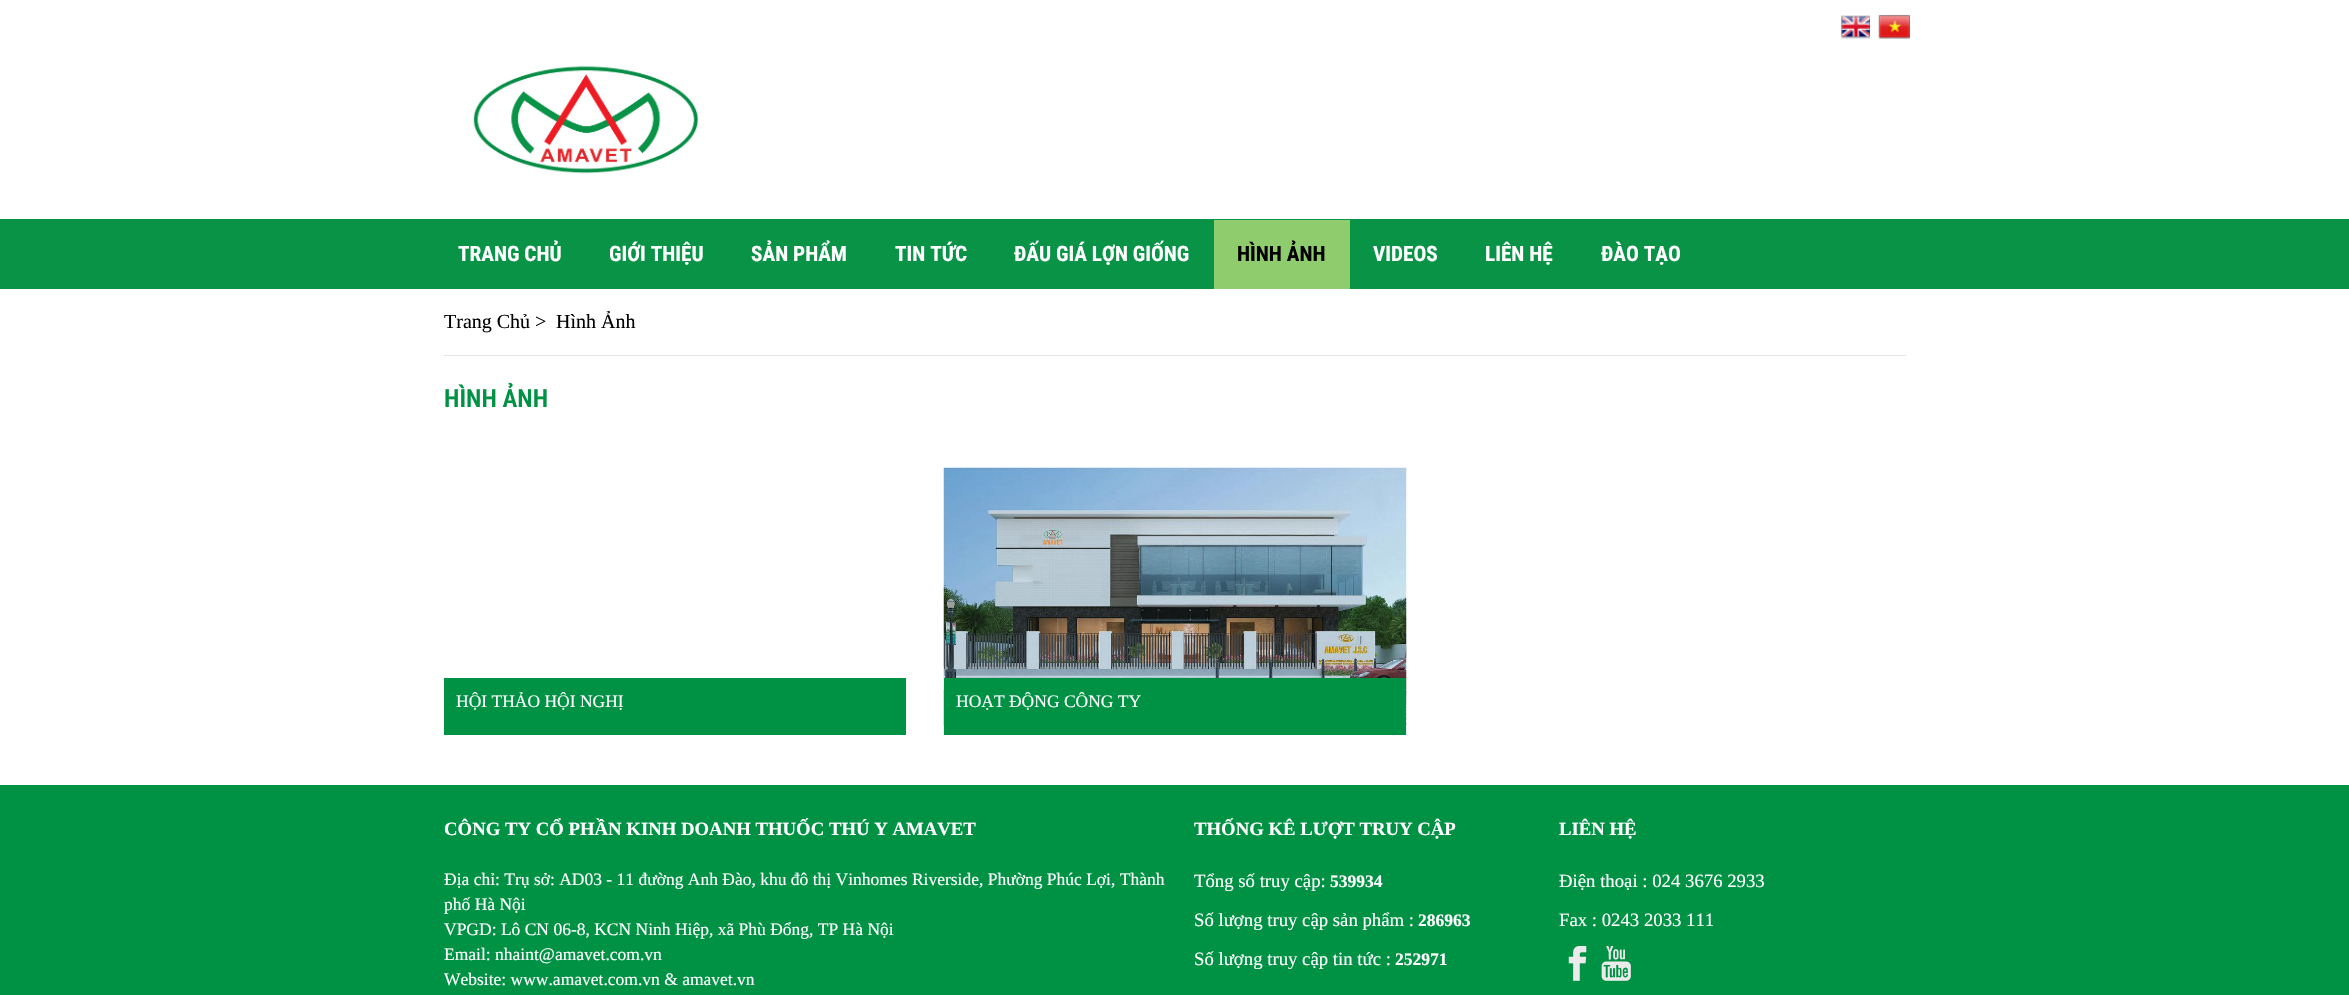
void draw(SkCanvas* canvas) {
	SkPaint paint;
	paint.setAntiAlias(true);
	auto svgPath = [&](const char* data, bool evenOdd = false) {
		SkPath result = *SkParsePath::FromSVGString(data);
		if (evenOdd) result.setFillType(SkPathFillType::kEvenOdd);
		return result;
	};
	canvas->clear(0xffffffff);
	canvas->drawImageRect(SkImages::DeferredFromEncodedData(SkData::MakeFromFileName("img1.png")), SkRect::MakeXYWH(1841, 15, 29, 24), SkSamplingOptions());
	canvas->drawImageRect(SkImages::DeferredFromEncodedData(SkData::MakeFromFileName("img2.png")), SkRect::MakeXYWH(1878, 15, 32, 24), SkSamplingOptions());
	canvas->drawImageRect(SkImages::DeferredFromEncodedData(SkData::MakeFromFileName("img3.png")), SkRect::MakeXYWH(473, 66, 226, 108), SkSamplingOptions());
	paint.setColor(0xff089346);
	canvas->drawRect(SkRect::MakeXYWH(0, 219, 2349, 70), paint);
	paint.setStroke(true);
	paint.setStrokeWidth(1.2);
	paint.setPathEffect(SkDashPathEffect::Make({{1.25f, 1.25f}}, 0));
	canvas->drawPath(svgPath("M0 219.5H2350"), paint);
	paint.setPathEffect(nullptr);
	SkFont f1(fontMgr->matchFamilyStyle("Roboto Condensed", SkFontStyle::Bold()), 21.25);
	f1.setSubpixel(true);
	paint.setStroke(false);
	paint.setColor(0xffffffff);
	canvas->drawString("TRANG CHỦ", 458, 261, f1, paint);
	canvas->drawString("GIỚI THIỆU", 609, 261, f1, paint);
	canvas->drawString("SẢN PHẨM", 751, 261, f1, paint);
	canvas->drawString("TIN TỨC", 895, 261, f1, paint);
	canvas->drawString("ĐẤU GIÁ LỢN GIỐNG", 1014, 261, f1, paint);
	paint.setColor(0xff8fcc6d);
	canvas->drawRect(SkRect::MakeXYWH(1214, 220, 136, 69), paint);
	paint.setColor(0xff000000);
	canvas->drawString("HÌNH ẢNH", 1237, 261, f1, paint);
	paint.setColor(0xffffffff);
	canvas->drawString("VIDEOS", 1373, 261, f1, paint);
	canvas->drawString("LIÊN HỆ", 1485, 261, f1, paint);
	canvas->drawString("ĐÀO TẠO", 1601, 261, f1, paint);
	paint.setColor(0xffe5e5e5);
	canvas->drawRect(SkRect::MakeXYWH(444, 355, 1462, 1), paint);
	SkFont f2(fontMgr->matchFamilyStyle("Liberation Serif", SkFontStyle::Normal()), 20);
	f2.setSubpixel(true);
	paint.setColor(0xff000000);
	canvas->drawString("Trang Chủ >", 444, 328, f2, paint);
	canvas->drawString("Hình Ảnh", 556, 328, f2, paint);
	SkFont f3(fontMgr->matchFamilyStyle("Roboto Condensed", SkFontStyle(600, SkFontStyle::kNormal_Width, SkFontStyle::kUpright_Slant)), 25);
	f3.setSubpixel(true);
	paint.setColor(0xff009244);
	canvas->drawString("HÌNH ẢNH", 444, 407, f3, paint);
	canvas->drawRect(SkRect::MakeXYWH(444, 678, 462, 57), paint);
	SkFont f4(fontMgr->matchFamilyStyle("Liberation Serif", SkFontStyle::Normal()), 17.5);
	f4.setSubpixel(true);
	paint.setColor(0xffffffff);
	canvas->drawString("HỘI THẢO HỘI NGHỊ", 456, 707, f4, paint);
	canvas->drawImageRect(SkImages::DeferredFromEncodedData(SkData::MakeFromFileName("img4.png")), SkRect::MakeXYWH(943, 467, 464, 268), SkSamplingOptions());
	paint.setColor(0xff009244);
	canvas->drawRect(SkRect::MakeXYWH(944, 678, 462, 57), paint);
	paint.setColor(0xffffffff);
	canvas->drawString("HOẠT ĐỘNG CÔNG TY", 956, 707, f4, paint);
	paint.setColor(0xff009244);
	canvas->drawRect(SkRect::MakeXYWH(0, 785, 2349, 210), paint);
	SkFont f5(fontMgr->matchFamilyStyle("Liberation Serif", SkFontStyle::Bold()), 18.75);
	f5.setSubpixel(true);
	paint.setColor(0xffffffff);
	canvas->drawString("CÔNG TY CỔ PHẦN KINH DOANH THUỐC THÚ Y AMAVET", 444, 835, f5, paint);
	canvas->drawString("Địa chỉ: Trụ sở: AD03 - 11 đường Anh Đào, khu đô thị Vinhomes Riverside, Phường Phúc Lợi, Thành", 444, 885, f4, paint);
	canvas->drawString("phố Hà Nội", 444, 910, f4, paint);
	canvas->drawString("VPGD: Lô CN 06-8, KCN Ninh Hiệp, xã Phù Đổng, TP Hà Nội", 444, 935, f4, paint);
	canvas->drawString("Email: nhaint@amavet.com.vn", 444, 960, f4, paint);
	canvas->drawString("Website: www.amavet.com.vn & amavet.vn", 444, 985, f4, paint);
	canvas->drawString("THỐNG KÊ LƯỢT TRUY CẬP", 1194, 835, f5, paint);
	SkFont f6(fontMgr->matchFamilyStyle("Liberation Serif", SkFontStyle::Normal()), 18.75);
	f6.setSubpixel(true);
	canvas->drawString("Tổng số truy cập:", 1194, 887, f6, paint);
	SkFont f7(fontMgr->matchFamilyStyle("Liberation Serif", SkFontStyle::Bold()), 17.5);
	f7.setSubpixel(true);
	canvas->drawString("539934", 1330, 887, f7, paint);
	canvas->drawString("Số lượng truy cập sản phẩm :", 1194, 926, f6, paint);
	canvas->drawString("286963", 1418, 926, f7, paint);
	canvas->drawString("Số lượng truy cập tin tức :", 1194, 965, f6, paint);
	canvas->drawString("252971", 1395, 965, f7, paint);
	canvas->drawString("LIÊN HỆ", 1559, 835, f5, paint);
	canvas->drawString("Điện thoại : 024 3676 2933", 1559, 887, f6, paint);
	canvas->drawString("Fax : 0243 2033 111", 1559, 926, f6, paint);
	canvas->drawImageRect(SkImages::DeferredFromEncodedData(SkData::MakeFromFileName("img5.png")), SkRect::MakeXYWH(1568, 946, 19, 35), SkSamplingOptions());
	canvas->drawImageRect(SkImages::DeferredFromEncodedData(SkData::MakeFromFileName("img6.png")), SkRect::MakeXYWH(1601, 946, 30, 35), SkSamplingOptions());
}
